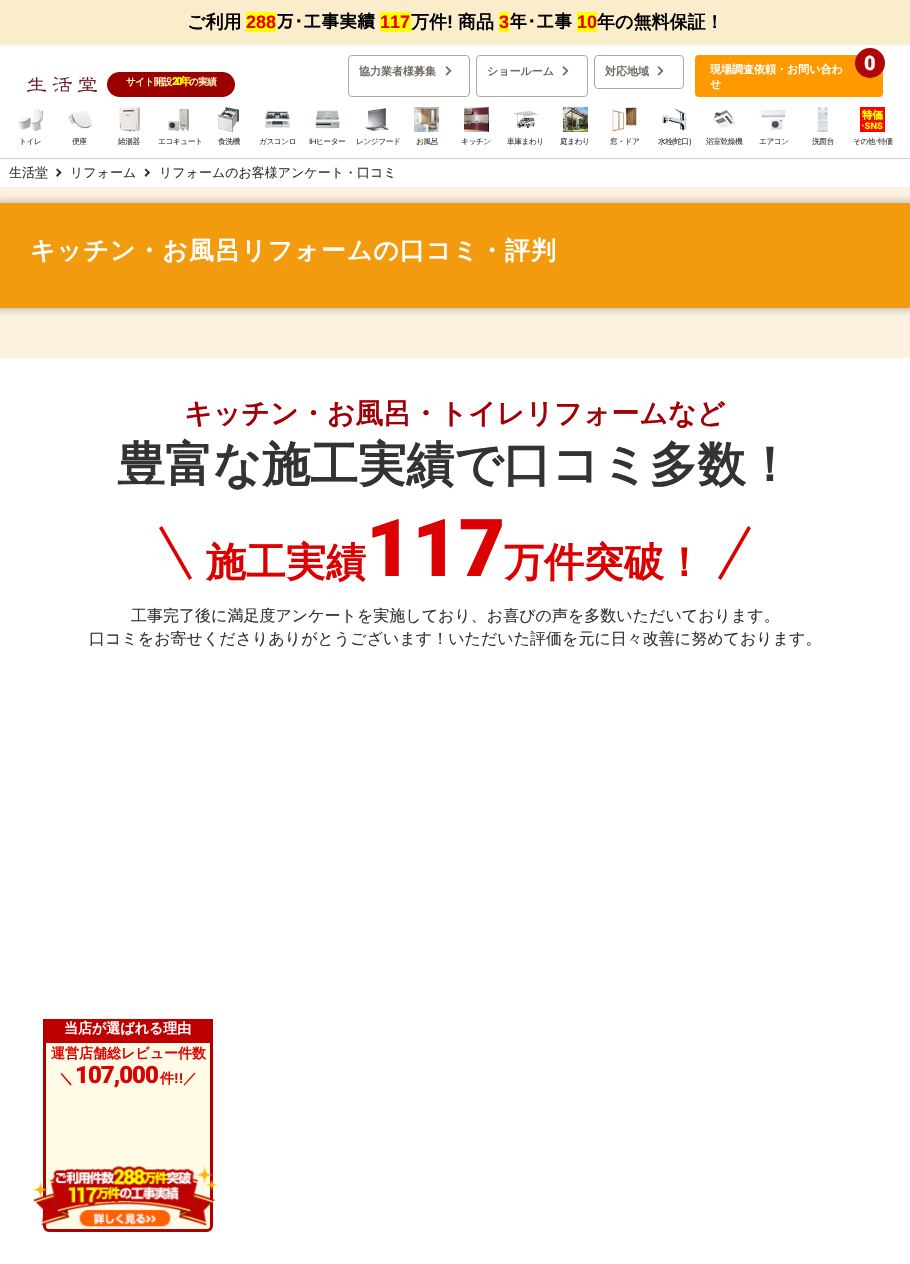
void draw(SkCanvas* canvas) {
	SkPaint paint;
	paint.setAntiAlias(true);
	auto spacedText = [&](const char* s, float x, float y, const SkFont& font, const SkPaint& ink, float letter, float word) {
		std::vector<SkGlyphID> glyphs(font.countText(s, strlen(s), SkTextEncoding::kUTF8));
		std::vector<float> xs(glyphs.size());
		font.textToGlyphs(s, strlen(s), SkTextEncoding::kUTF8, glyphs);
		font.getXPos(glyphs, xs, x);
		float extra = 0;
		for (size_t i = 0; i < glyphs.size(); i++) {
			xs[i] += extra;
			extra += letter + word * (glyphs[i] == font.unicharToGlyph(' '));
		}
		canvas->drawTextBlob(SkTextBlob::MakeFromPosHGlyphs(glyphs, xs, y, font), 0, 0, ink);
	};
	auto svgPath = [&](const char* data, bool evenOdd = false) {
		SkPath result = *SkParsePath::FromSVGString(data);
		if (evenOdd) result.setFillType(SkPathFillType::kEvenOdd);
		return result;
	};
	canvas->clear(0xffffffff);
	paint.setColor(0xfffbedcc);
	canvas->drawRect(SkRect::MakeXYWH(0, 0, 910, 45), paint);
	SkFont f1(fontMgr->matchFamilyStyle("WenQuanYi Zen Hei", SkFontStyle::Bold()), 18);
	f1.setSubpixel(true);
	paint.setColor(0xff000000);
	canvas->drawString("ご利用", 187, 28, f1, paint);
	paint.setColor(0xffffff00);
	canvas->drawRect(SkRect::MakeXYWH(246, 12, 30, 20), paint);
	SkFont f2(fontMgr->matchFamilyStyle("Liberation Sans", SkFontStyle::Bold()), 18);
	f2.setSubpixel(true);
	paint.setColor(0xffee0000);
	canvas->drawString("288", 246, 28, f2, paint);
	SkFont f3(fontMgr->matchFamilyStyle("IPAPGothic", SkFontStyle::Bold()), 18);
	f3.setSubpixel(true);
	paint.setColor(0xff000000);
	canvas->drawString("万･工事実績", 276, 28, f3, paint);
	paint.setColor(0xffffff00);
	canvas->drawRect(SkRect::MakeXYWH(380, 12, 31, 20), paint);
	paint.setColor(0xffee0000);
	canvas->drawString("117", 380, 28, f2, paint);
	paint.setColor(0xff000000);
	canvas->drawString("万件", 411, 28, f1, paint);
	canvas->drawString("!", 447, 28, f2, paint);
	canvas->drawString("商品", 458, 28, f1, paint);
	paint.setColor(0xffffff00);
	canvas->drawRect(SkRect::MakeXYWH(499, 12, 10, 20), paint);
	paint.setColor(0xffee0000);
	canvas->drawString("3", 499, 28, f2, paint);
	paint.setColor(0xff000000);
	canvas->drawString("年･工事", 509, 28, f3, paint);
	paint.setColor(0xffffff00);
	canvas->drawRect(SkRect::MakeXYWH(577, 12, 20, 20), paint);
	paint.setColor(0xffee0000);
	canvas->drawString("10", 577, 28, f2, paint);
	paint.setColor(0xff000000);
	canvas->drawString("年の無料保証！", 597, 28, f1, paint);
	paint.setColor(0xffcccccc);
	canvas->drawRect(SkRect::MakeXYWH(0, 158, 910, 1), paint);
	canvas->drawImageRect(SkImages::DeferredFromEncodedData(SkData::MakeFromFileName("img1.png")), SkRect::MakeXYWH(27, 76, 70, 17), SkSamplingOptions());
	paint.setColor(0xff9c0101);
	canvas->drawRoundRect(SkRect::MakeXYWH(107, 72, 128, 25), 12.5, 12.5, paint);
	SkFont f4(fontMgr->matchFamilyStyle("WenQuanYi Zen Hei", SkFontStyle::Bold()), 9.5);
	f4.setSubpixel(true);
	paint.setColor(0xfffff6bc);
	spacedText("サイト開設", 126, 85, f4, paint, -0.5, 0);
	SkFont f5(fontMgr->matchFamilyStyle("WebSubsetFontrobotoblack", SkFontStyle(900, SkFontStyle::kNormal_Width, SkFontStyle::kUpright_Slant)), 11);
	f5.setSubpixel(true);
	paint.setColor(0xffffff00);
	spacedText("20", 172, 85, f5, paint, -2, 0);
	SkFont f6(fontMgr->matchFamilyStyle("WenQuanYi Zen Hei", SkFontStyle::Bold()), 11);
	f6.setSubpixel(true);
	spacedText("年", 180, 85, f6, paint, -2, 0);
	paint.setColor(0xfffff6bc);
	spacedText("の実績", 189, 85, f4, paint, -0.5, 0);
	paint.setStroke(true);
	paint.setStrokeWidth(1);
	paint.setColor(0xffb0a79a);
	canvas->drawRoundRect(SkRect::MakeXYWH(348.5, 55.5, 121, 41), 3.5, 3.5, paint);
	paint.setStroke(false);
	paint.setColor(0xff6e685f);
	canvas->drawString("協力業者様募集", 359, 75, f6, paint);
	canvas->drawImageRect(SkImages::DeferredFromEncodedData(SkData::MakeFromFileName("img2.png")), SkRect::MakeXYWH(445, 66, 7, 10), SkSamplingOptions());
	paint.setStroke(true);
	paint.setColor(0xffb0a79a);
	canvas->drawRoundRect(SkRect::MakeXYWH(476.5, 55.5, 111, 41), 3.5, 3.5, paint);
	paint.setStroke(false);
	paint.setColor(0xff6e685f);
	canvas->drawString("ショールーム", 487, 75, f6, paint);
	canvas->drawImageRect(SkImages::DeferredFromEncodedData(SkData::MakeFromFileName("img2.png")), SkRect::MakeXYWH(562, 66, 7, 10), SkSamplingOptions());
	paint.setStroke(true);
	paint.setColor(0xffb0a79a);
	canvas->drawRoundRect(SkRect::MakeXYWH(594.5, 55.5, 89, 33), 3.5, 3.5, paint);
	paint.setStroke(false);
	paint.setColor(0xff6e685f);
	canvas->drawString("対応地域", 605, 75, f6, paint);
	canvas->drawImageRect(SkImages::DeferredFromEncodedData(SkData::MakeFromFileName("img2.png")), SkRect::MakeXYWH(657, 66, 7, 10), SkSamplingOptions());
	paint.setColor(0xffff9900);
	canvas->drawRoundRect(SkRect::MakeXYWH(695, 55, 188, 42), 4, 4, paint);
	paint.setColor(0xffffffff);
	canvas->drawString("現場調査依頼・お問い合わ", 710, 73, f6, paint);
	paint.setColor(0xffaf0707);
	canvas->drawCircle(870, 63, 15, paint);
	SkFont f7(fontMgr->matchFamilyStyle("WebSubsetFontrobotoblack", SkFontStyle(900, SkFontStyle::kNormal_Width, SkFontStyle::kUpright_Slant)), 20);
	f7.setSubpixel(true);
	paint.setColor(0xffffffff);
	canvas->drawString("0", 864, 70, f7, paint);
	canvas->drawString("せ", 710, 88, f6, paint);
	canvas->drawImageRect(SkImages::DeferredFromEncodedData(SkData::MakeFromFileName("img3.png")), SkRect::MakeXYWH(18, 109, 25, 22), SkSamplingOptions());
	SkFont f8(fontMgr->matchFamilyStyle("WenQuanYi Zen Hei", SkFontStyle(500, SkFontStyle::kNormal_Width, SkFontStyle::kUpright_Slant)), 7.75);
	f8.setSubpixel(true);
	paint.setColor(0xff333333);
	spacedText("トイレ", 19, 144, f8, paint, -0.5, 0);
	canvas->drawImageRect(SkImages::DeferredFromEncodedData(SkData::MakeFromFileName("img4.png")), SkRect::MakeXYWH(68, 111, 24, 18), SkSamplingOptions());
	spacedText("便座", 72, 144, f8, paint, -0.5, 0);
	canvas->drawImageRect(SkImages::DeferredFromEncodedData(SkData::MakeFromFileName("img5.png")), SkRect::MakeXYWH(119, 107, 21, 25), SkSamplingOptions());
	spacedText("給湯器", 118, 144, f8, paint, -0.5, 0);
	canvas->drawImageRect(SkImages::DeferredFromEncodedData(SkData::MakeFromFileName("img6.png")), SkRect::MakeXYWH(168, 109, 21, 22), SkSamplingOptions());
	spacedText("エコキュート", 158, 144, f8, paint, -0.5, 0);
	canvas->drawImageRect(SkImages::DeferredFromEncodedData(SkData::MakeFromFileName("img7.png")), SkRect::MakeXYWH(218, 107, 21, 25), SkSamplingOptions());
	spacedText("食洗機", 218, 144, f8, paint, -0.5, 0);
	canvas->drawImageRect(SkImages::DeferredFromEncodedData(SkData::MakeFromFileName("img8.png")), SkRect::MakeXYWH(265, 111, 25, 17), SkSamplingOptions());
	spacedText("ガスコンロ", 259, 144, f8, paint, -0.5, 0);
	canvas->drawImageRect(SkImages::DeferredFromEncodedData(SkData::MakeFromFileName("img9.png")), SkRect::MakeXYWH(315, 110, 25, 19), SkSamplingOptions());
	SkFont f9(fontMgr->matchFamilyStyle("Liberation Sans", SkFontStyle::Normal()), 7.75);
	f9.setSubpixel(true);
	spacedText("IH", 309, 144, f9, paint, -0.5, 0);
	spacedText("ヒーター", 316, 144, f8, paint, -0.5, 0);
	canvas->drawImageRect(SkImages::DeferredFromEncodedData(SkData::MakeFromFileName("img10.png")), SkRect::MakeXYWH(364, 108, 25, 23), SkSamplingOptions());
	spacedText("レンジフード", 356, 144, f8, paint, -0.5, 0);
	canvas->drawImageRect(SkImages::DeferredFromEncodedData(SkData::MakeFromFileName("img11.png")), SkRect::MakeXYWH(414, 107, 25, 25), SkSamplingOptions());
	spacedText("お風呂", 416, 144, f8, paint, -0.5, 0);
	canvas->drawImageRect(SkImages::DeferredFromEncodedData(SkData::MakeFromFileName("img12.png")), SkRect::MakeXYWH(464, 107, 25, 25), SkSamplingOptions());
	spacedText("キッチン", 461, 144, f8, paint, -0.5, 0);
	canvas->drawImageRect(SkImages::DeferredFromEncodedData(SkData::MakeFromFileName("img13.png")), SkRect::MakeXYWH(513, 111, 25, 18), SkSamplingOptions());
	spacedText("車庫まわり", 507, 144, f8, paint, -0.5, 0);
	canvas->drawImageRect(SkImages::DeferredFromEncodedData(SkData::MakeFromFileName("img14.png")), SkRect::MakeXYWH(563, 107, 25, 25), SkSamplingOptions());
	spacedText("庭まわり", 560, 144, f8, paint, -0.5, 0);
	canvas->drawImageRect(SkImages::DeferredFromEncodedData(SkData::MakeFromFileName("img15.png")), SkRect::MakeXYWH(612, 107, 25, 25), SkSamplingOptions());
	spacedText("窓・ドア", 610, 144, f8, paint, -0.5, 0);
	canvas->drawImageRect(SkImages::DeferredFromEncodedData(SkData::MakeFromFileName("img16.png")), SkRect::MakeXYWH(662, 109, 25, 22), SkSamplingOptions());
	spacedText("水栓", 658, 144, f8, paint, -0.5, 0);
	spacedText("(", 672, 144, f9, paint, -0.5, 0);
	spacedText("蛇口", 674, 144, f8, paint, -0.5, 0);
	spacedText(")", 689, 144, f9, paint, -0.5, 0);
	canvas->drawImageRect(SkImages::DeferredFromEncodedData(SkData::MakeFromFileName("img17.png")), SkRect::MakeXYWH(712, 110, 23, 18), SkSamplingOptions());
	spacedText("浴室乾燥機", 706, 144, f8, paint, -0.5, 0);
	canvas->drawImageRect(SkImages::DeferredFromEncodedData(SkData::MakeFromFileName("img18.png")), SkRect::MakeXYWH(761, 110, 25, 20), SkSamplingOptions());
	spacedText("エアコン", 759, 144, f8, paint, -0.5, 0);
	canvas->drawImageRect(SkImages::DeferredFromEncodedData(SkData::MakeFromFileName("img19.png")), SkRect::MakeXYWH(817, 107, 11, 25), SkSamplingOptions());
	spacedText("洗面台", 812, 144, f8, paint, -0.5, 0);
	canvas->drawImageRect(SkImages::DeferredFromEncodedData(SkData::MakeFromFileName("img20.png")), SkRect::MakeXYWH(860, 107, 25, 25), SkSamplingOptions());
	spacedText("その他", 853, 144, f8, paint, -0.5, 0);
	SkFont f10(fontMgr->matchFamilyStyle("IPAPGothic", SkFontStyle::Normal()), 7.75);
	f10.setSubpixel(true);
	spacedText("･", 875, 144, f10, paint, -0.5, 0);
	spacedText("特価", 878, 144, f8, paint, -0.5, 0);
	SkFont f11(fontMgr->matchFamilyStyle("WenQuanYi Zen Hei", SkFontStyle(500, SkFontStyle::kNormal_Width, SkFontStyle::kUpright_Slant)), 13);
	f11.setSubpixel(true);
	canvas->drawString("生活堂", 9, 177, f11, paint);
	canvas->drawPath(svgPath("M56 169.5L57.5 168.5L61.5 172.5L60 174Z"), paint);
	canvas->drawPath(svgPath("M56 175.5L60 171L61.5 172.5L57.5 177Z"), paint);
	canvas->drawString("リフォーム", 70, 177, f11, paint);
	canvas->drawPath(svgPath("M144.5 169.5L146 168.5L150 172.5L148.5 174Z"), paint);
	canvas->drawPath(svgPath("M144.5 175.5L148.5 171L150 172.5L146 177Z"), paint);
	canvas->drawString("リフォームのお客様アンケート・口コミ", 159, 177, f11, paint);
	paint.setColor(0xfffef1e0);
	canvas->drawRect(SkRect::MakeXYWH(0, 187, 910, 171), paint);
	paint.setColor(0xa6b0b0b0);
	paint.setMaskFilter(SkMaskFilter::MakeBlur(kNormal_SkBlurStyle, 3));
	canvas->drawRect(SkRect::MakeXYWH(-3, 200, 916, 111), paint);
	paint.setMaskFilter(nullptr);
	paint.setColor(0xfff29b0f);
	canvas->drawRect(SkRect::MakeXYWH(0, 203, 910, 105), paint);
	SkFont f12(fontMgr->matchFamilyStyle("WenQuanYi Zen Hei", SkFontStyle::Bold()), 25);
	f12.setSubpixel(true);
	paint.setColor(0xffffffff);
	spacedText("キッチン・お風呂リフォームの口コミ・評判", 30, 259, f12, paint, 1, 0);
	SkFont f13(fontMgr->matchFamilyStyle("WenQuanYi Zen Hei", SkFontStyle::Bold()), 28);
	f13.setSubpixel(true);
	paint.setColor(0xffa10006);
	canvas->drawString("キッチン・お風呂・トイレリフォームなど", 184, 423, f13, paint);
	SkFont f14(fontMgr->matchFamilyStyle("WenQuanYi Zen Hei", SkFontStyle::Bold()), 48);
	f14.setSubpixel(true);
	paint.setColor(0xff333333);
	canvas->drawString("豊富な施工実績で口コミ多数！", 117, 481, f14, paint);
	paint.setColor(0xffdd0000);
	canvas->drawPath(svgPath("M162 526L192 578L189 580L159 528Z"), paint);
	SkFont f15(fontMgr->matchFamilyStyle("WenQuanYi Zen Hei", SkFontStyle::Bold()), 40);
	f15.setSubpixel(true);
	canvas->drawString("施工実績", 206, 576, f15, paint);
	SkFont f16(fontMgr->matchFamilyStyle("WebSubsetFontrobotoblack", SkFontStyle(900, SkFontStyle::kNormal_Width, SkFontStyle::kUpright_Slant)), 80);
	f16.setSubpixel(true);
	canvas->drawString("117", 366, 576, f16, paint);
	canvas->drawString("万件突破！", 504, 576, f15, paint);
	canvas->drawPath(svgPath("M718 578L748 526L751 528L721 580Z"), paint);
	SkFont f17(fontMgr->matchFamilyStyle("WenQuanYi Zen Hei", SkFontStyle(500, SkFontStyle::kNormal_Width, SkFontStyle::kUpright_Slant)), 16);
	f17.setSubpixel(true);
	paint.setColor(0xff333333);
	canvas->drawString("工事完了後に満足度アンケートを実施しており、お喜びの声を多数いただいております。", 131, 621, f17, paint);
	canvas->drawString("口コミをお寄せくださりありがとうございます！いただいた評価を元に日々改善に努めております。", 89, 644, f17, paint);
	canvas->save();
	canvas->clipRect(SkRect::MakeXYWH(20, 1019, 380, 225));
	paint.setColor(0xfffffbe6);
	canvas->drawRoundRect(SkRect::MakeXYWH(44.5, 1015.5, 167, 215), 4.5, 4.5, paint);
	paint.setStroke(true);
	paint.setStrokeWidth(3);
	paint.setColor(0xffb10000);
	canvas->drawRoundRect(SkRect::MakeXYWH(44.5, 1015.5, 167, 215), 4.5, 4.5, paint);
	canvas->restore();
	paint.setStroke(false);
	paint.setColor(0xffbf0000);
	canvas->drawRect(SkRect::MakeXYWH(46, 1019, 164, 24), paint);
	SkFont f18(fontMgr->matchFamilyStyle("WenQuanYi Zen Hei", SkFontStyle::Bold()), 14);
	f18.setSubpixel(true);
	paint.setColor(0xffffffff);
	canvas->drawString("当店が選ばれる理由", 64, 1033, f18, paint);
	paint.setColor(0xffdd0000);
	canvas->drawString("運営店舗総レビュー件数", 51, 1058, f18, paint);
	canvas->drawString("＼", 59, 1083, f18, paint);
	SkFont f19(fontMgr->matchFamilyStyle("WebSubsetFontrobotoblack", SkFontStyle(900, SkFontStyle::kNormal_Width, SkFontStyle::kUpright_Slant)), 24);
	f19.setSubpixel(true);
	spacedText("107,000", 75, 1083, f19, paint, -1, 0);
	canvas->drawString("件", 160, 1083, f18, paint);
	SkFont f20(fontMgr->matchFamilyStyle("Liberation Sans", SkFontStyle::Bold()), 14);
	f20.setSubpixel(true);
	canvas->drawString("!!", 174, 1083, f20, paint);
	canvas->drawString("／", 183, 1083, f18, paint);
	canvas->drawImageRect(SkImages::DeferredFromEncodedData(SkData::MakeFromFileName("img21.png")), SkRect::MakeXYWH(31, 1165, 188, 62), SkSamplingOptions());
}
